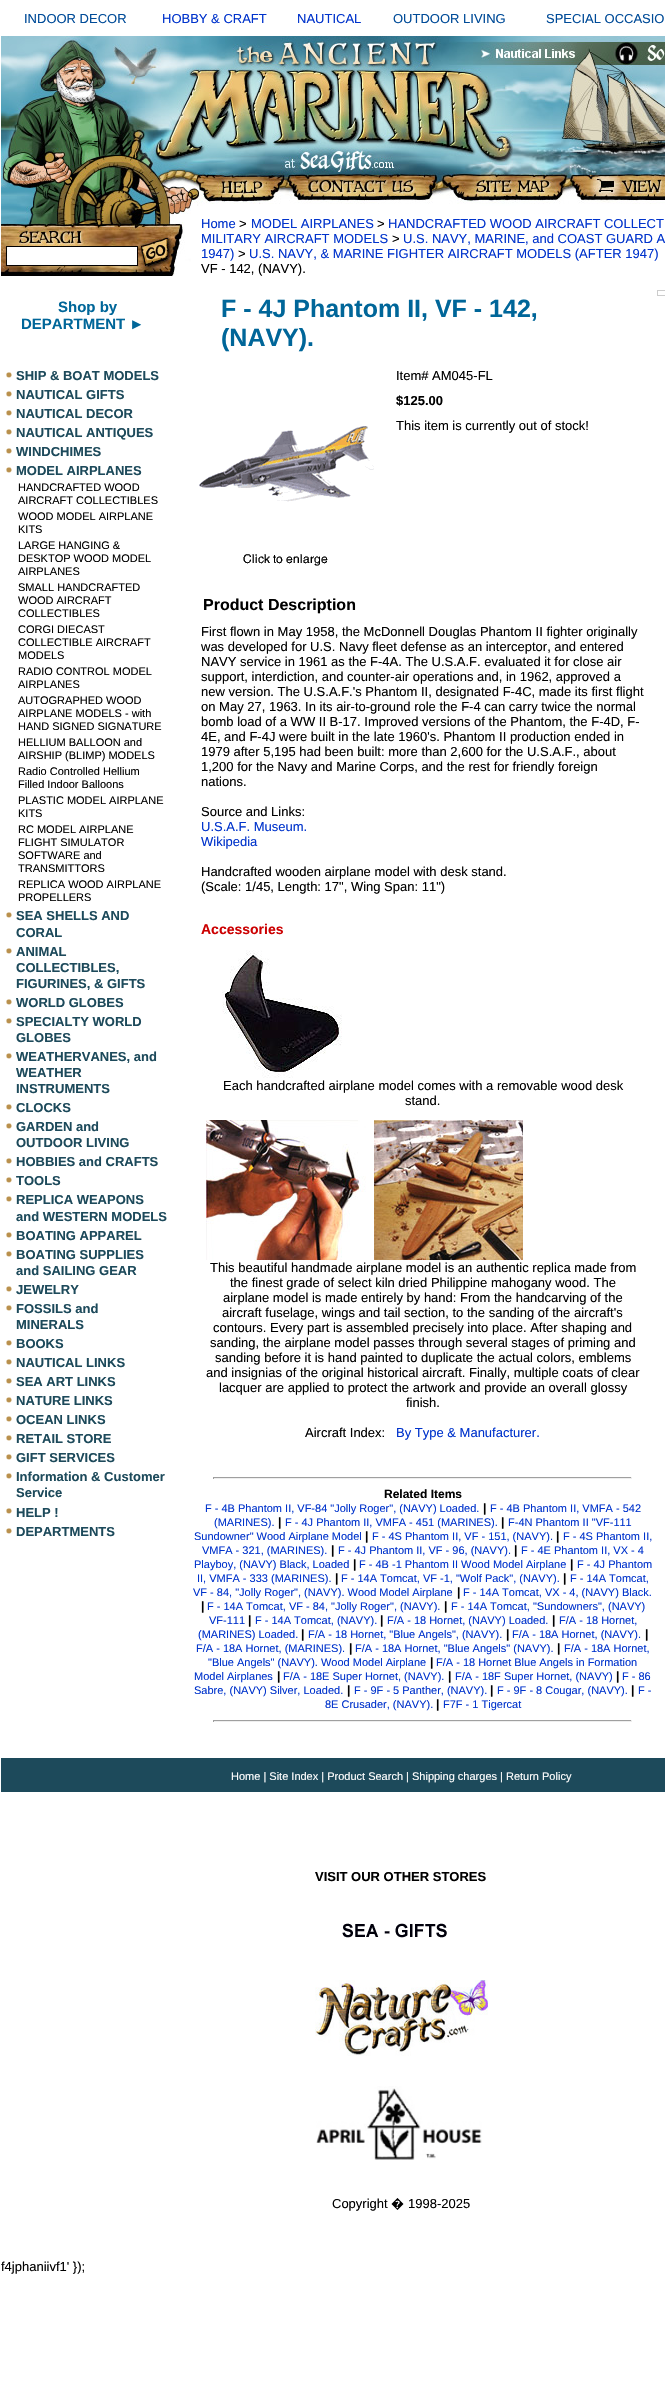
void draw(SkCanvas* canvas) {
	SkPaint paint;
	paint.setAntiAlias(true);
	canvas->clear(0xffffffff);
	SkFont f1(fontMgr->matchFamilyStyle("Liberation Sans", SkFontStyle::Normal()), 13);
	f1.setSubpixel(true);
	paint.setColor(0xff004b98);
	canvas->drawString("INDOOR DECOR", 24, 23, f1, paint);
	paint.setColor(0xff0033cc);
	canvas->drawString("HOBBY & CRAFT", 162, 23, f1, paint);
	canvas->drawString("NAUTICAL", 297, 23, f1, paint);
	paint.setColor(0xff004b98);
	canvas->drawString("OUTDOOR LIVING", 393, 23, f1, paint);
	canvas->drawString("SPECIAL OCCASIO", 546, 23, f1, paint);
	canvas->drawImageRect(SkImages::DeferredFromEncodedData(SkData::MakeFromFileName("img1.png")), SkRect::MakeXYWH(1, 36, 664, 170), SkSamplingOptions());
	canvas->drawImageRect(SkImages::DeferredFromEncodedData(SkData::MakeFromFileName("img2.png")), SkRect::MakeXYWH(1, 206, 190, 70), SkSamplingOptions());
	SkFont f2(fontMgr->matchFamilyStyle("Liberation Sans", SkFontStyle::Bold()), 15);
	f2.setSubpixel(true);
	paint.setColor(0xff006699);
	canvas->drawString("Shop by", 58, 312, f2, paint);
	canvas->drawString("DEPARTMENT ►", 21, 329, f2, paint);
	canvas->drawImageRect(SkImages::DeferredFromEncodedData(SkData::MakeFromFileName("img3.png")), SkRect::MakeXYWH(6, 372, 6, 6), SkSamplingOptions());
	SkFont f3(fontMgr->matchFamilyStyle("Liberation Sans", SkFontStyle::Bold()), 13);
	f3.setSubpixel(true);
	paint.setColor(0xff1d4a5b);
	canvas->drawString("SHIP & BOAT MODELS", 16, 380, f3, paint);
	canvas->drawImageRect(SkImages::DeferredFromEncodedData(SkData::MakeFromFileName("img3.png")), SkRect::MakeXYWH(6, 391, 6, 6), SkSamplingOptions());
	canvas->drawString("NAUTICAL GIFTS", 16, 399, f3, paint);
	canvas->drawImageRect(SkImages::DeferredFromEncodedData(SkData::MakeFromFileName("img3.png")), SkRect::MakeXYWH(6, 410, 6, 6), SkSamplingOptions());
	canvas->drawString("NAUTICAL DECOR", 16, 418, f3, paint);
	canvas->drawImageRect(SkImages::DeferredFromEncodedData(SkData::MakeFromFileName("img3.png")), SkRect::MakeXYWH(6, 429, 6, 6), SkSamplingOptions());
	canvas->drawString("NAUTICAL ANTIQUES", 16, 437, f3, paint);
	canvas->drawImageRect(SkImages::DeferredFromEncodedData(SkData::MakeFromFileName("img3.png")), SkRect::MakeXYWH(6, 448, 6, 6), SkSamplingOptions());
	canvas->drawString("WINDCHIMES", 16, 456, f3, paint);
	canvas->drawImageRect(SkImages::DeferredFromEncodedData(SkData::MakeFromFileName("img3.png")), SkRect::MakeXYWH(6, 467, 6, 6), SkSamplingOptions());
	canvas->drawString("MODEL AIRPLANES", 16, 475, f3, paint);
	SkFont f4(fontMgr->matchFamilyStyle("Liberation Sans", SkFontStyle::Normal()), 11);
	f4.setSubpixel(true);
	paint.setColor(0xff000000);
	canvas->drawString("HANDCRAFTED WOOD", 18, 491, f4, paint);
	canvas->drawString("AIRCRAFT COLLECTIBLES", 18, 504, f4, paint);
	canvas->drawString("WOOD MODEL AIRPLANE", 18, 520, f4, paint);
	canvas->drawString("KITS", 18, 533, f4, paint);
	canvas->drawString("LARGE HANGING &", 18, 549, f4, paint);
	canvas->drawString("DESKTOP WOOD MODEL", 18, 562, f4, paint);
	canvas->drawString("AIRPLANES", 18, 575, f4, paint);
	canvas->drawString("SMALL HANDCRAFTED", 18, 591, f4, paint);
	canvas->drawString("WOOD AIRCRAFT", 18, 604, f4, paint);
	canvas->drawString("COLLECTIBLES", 18, 617, f4, paint);
	canvas->drawString("CORGI DIECAST", 18, 633, f4, paint);
	canvas->drawString("COLLECTIBLE AIRCRAFT", 18, 646, f4, paint);
	canvas->drawString("MODELS", 18, 659, f4, paint);
	canvas->drawString("RADIO CONTROL MODEL", 18, 675, f4, paint);
	canvas->drawString("AIRPLANES", 18, 688, f4, paint);
	canvas->drawString("AUTOGRAPHED WOOD", 18, 704, f4, paint);
	canvas->drawString("AIRPLANE MODELS - with", 18, 717, f4, paint);
	canvas->drawString("HAND SIGNED SIGNATURE", 18, 730, f4, paint);
	canvas->drawString("HELLIUM BALLOON and", 18, 746, f4, paint);
	canvas->drawString("AIRSHIP (BLIMP) MODELS", 18, 759, f4, paint);
	canvas->drawString("Radio Controlled Hellium", 18, 775, f4, paint);
	canvas->drawString("Filled Indoor Balloons", 18, 788, f4, paint);
	canvas->drawString("PLASTIC MODEL AIRPLANE", 18, 804, f4, paint);
	canvas->drawString("KITS", 18, 817, f4, paint);
	canvas->drawString("RC MODEL AIRPLANE", 18, 833, f4, paint);
	canvas->drawString("FLIGHT SIMULATOR", 18, 846, f4, paint);
	canvas->drawString("SOFTWARE and", 18, 859, f4, paint);
	canvas->drawString("TRANSMITTORS", 18, 872, f4, paint);
	canvas->drawString("REPLICA WOOD AIRPLANE", 18, 888, f4, paint);
	canvas->drawString("PROPELLERS", 18, 901, f4, paint);
	canvas->drawImageRect(SkImages::DeferredFromEncodedData(SkData::MakeFromFileName("img3.png")), SkRect::MakeXYWH(6, 912, 6, 6), SkSamplingOptions());
	paint.setColor(0xff1d4a5b);
	canvas->drawString("SEA SHELLS AND", 16, 920, f3, paint);
	canvas->drawString("CORAL", 16, 937, f3, paint);
	canvas->drawImageRect(SkImages::DeferredFromEncodedData(SkData::MakeFromFileName("img3.png")), SkRect::MakeXYWH(6, 948, 6, 6), SkSamplingOptions());
	canvas->drawString("ANIMAL", 16, 956, f3, paint);
	canvas->drawString("COLLECTIBLES,", 16, 972, f3, paint);
	canvas->drawString("FIGURINES, & GIFTS", 16, 988, f3, paint);
	canvas->drawImageRect(SkImages::DeferredFromEncodedData(SkData::MakeFromFileName("img3.png")), SkRect::MakeXYWH(6, 999, 6, 6), SkSamplingOptions());
	canvas->drawString("WORLD GLOBES", 16, 1007, f3, paint);
	canvas->drawImageRect(SkImages::DeferredFromEncodedData(SkData::MakeFromFileName("img3.png")), SkRect::MakeXYWH(6, 1018, 6, 6), SkSamplingOptions());
	canvas->drawString("SPECIALTY WORLD", 16, 1026, f3, paint);
	canvas->drawString("GLOBES", 16, 1042, f3, paint);
	canvas->drawImageRect(SkImages::DeferredFromEncodedData(SkData::MakeFromFileName("img3.png")), SkRect::MakeXYWH(6, 1053, 6, 6), SkSamplingOptions());
	canvas->drawString("WEATHERVANES, and", 16, 1061, f3, paint);
	canvas->drawString("WEATHER", 16, 1077, f3, paint);
	canvas->drawString("INSTRUMENTS", 16, 1093, f3, paint);
	canvas->drawImageRect(SkImages::DeferredFromEncodedData(SkData::MakeFromFileName("img3.png")), SkRect::MakeXYWH(6, 1104, 6, 6), SkSamplingOptions());
	canvas->drawString("CLOCKS", 16, 1112, f3, paint);
	canvas->drawImageRect(SkImages::DeferredFromEncodedData(SkData::MakeFromFileName("img3.png")), SkRect::MakeXYWH(6, 1123, 6, 6), SkSamplingOptions());
	canvas->drawString("GARDEN and", 16, 1131, f3, paint);
	canvas->drawString("OUTDOOR LIVING", 16, 1147, f3, paint);
	canvas->drawImageRect(SkImages::DeferredFromEncodedData(SkData::MakeFromFileName("img3.png")), SkRect::MakeXYWH(6, 1158, 6, 6), SkSamplingOptions());
	canvas->drawString("HOBBIES and CRAFTS", 16, 1166, f3, paint);
	canvas->drawImageRect(SkImages::DeferredFromEncodedData(SkData::MakeFromFileName("img3.png")), SkRect::MakeXYWH(6, 1177, 6, 6), SkSamplingOptions());
	canvas->drawString("TOOLS", 16, 1185, f3, paint);
	canvas->drawImageRect(SkImages::DeferredFromEncodedData(SkData::MakeFromFileName("img3.png")), SkRect::MakeXYWH(6, 1196, 6, 6), SkSamplingOptions());
	canvas->drawString("REPLICA WEAPONS", 16, 1204, f3, paint);
	canvas->drawString("and WESTERN MODELS", 16, 1221, f3, paint);
	canvas->drawImageRect(SkImages::DeferredFromEncodedData(SkData::MakeFromFileName("img3.png")), SkRect::MakeXYWH(6, 1232, 6, 6), SkSamplingOptions());
	canvas->drawString("BOATING APPAREL", 16, 1240, f3, paint);
	canvas->drawImageRect(SkImages::DeferredFromEncodedData(SkData::MakeFromFileName("img3.png")), SkRect::MakeXYWH(6, 1251, 6, 6), SkSamplingOptions());
	canvas->drawString("BOATING SUPPLIES", 16, 1259, f3, paint);
	canvas->drawString("and SAILING GEAR", 16, 1275, f3, paint);
	canvas->drawImageRect(SkImages::DeferredFromEncodedData(SkData::MakeFromFileName("img3.png")), SkRect::MakeXYWH(6, 1286, 6, 6), SkSamplingOptions());
	canvas->drawString("JEWELRY", 16, 1294, f3, paint);
	canvas->drawImageRect(SkImages::DeferredFromEncodedData(SkData::MakeFromFileName("img3.png")), SkRect::MakeXYWH(6, 1305, 6, 6), SkSamplingOptions());
	canvas->drawString("FOSSILS and", 16, 1313, f3, paint);
	canvas->drawString("MINERALS", 16, 1329, f3, paint);
	canvas->drawImageRect(SkImages::DeferredFromEncodedData(SkData::MakeFromFileName("img3.png")), SkRect::MakeXYWH(6, 1340, 6, 6), SkSamplingOptions());
	canvas->drawString("BOOKS", 16, 1348, f3, paint);
	canvas->drawImageRect(SkImages::DeferredFromEncodedData(SkData::MakeFromFileName("img3.png")), SkRect::MakeXYWH(6, 1359, 6, 6), SkSamplingOptions());
	canvas->drawString("NAUTICAL LINKS", 16, 1367, f3, paint);
	canvas->drawImageRect(SkImages::DeferredFromEncodedData(SkData::MakeFromFileName("img3.png")), SkRect::MakeXYWH(6, 1378, 6, 6), SkSamplingOptions());
	canvas->drawString("SEA ART LINKS", 16, 1386, f3, paint);
	canvas->drawImageRect(SkImages::DeferredFromEncodedData(SkData::MakeFromFileName("img3.png")), SkRect::MakeXYWH(6, 1397, 6, 6), SkSamplingOptions());
	canvas->drawString("NATURE LINKS", 16, 1405, f3, paint);
	canvas->drawImageRect(SkImages::DeferredFromEncodedData(SkData::MakeFromFileName("img3.png")), SkRect::MakeXYWH(6, 1416, 6, 6), SkSamplingOptions());
	canvas->drawString("OCEAN LINKS", 16, 1424, f3, paint);
	canvas->drawImageRect(SkImages::DeferredFromEncodedData(SkData::MakeFromFileName("img3.png")), SkRect::MakeXYWH(6, 1435, 6, 6), SkSamplingOptions());
	canvas->drawString("RETAIL STORE", 16, 1443, f3, paint);
	canvas->drawImageRect(SkImages::DeferredFromEncodedData(SkData::MakeFromFileName("img3.png")), SkRect::MakeXYWH(6, 1454, 6, 6), SkSamplingOptions());
	canvas->drawString("GIFT SERVICES", 16, 1462, f3, paint);
	canvas->drawImageRect(SkImages::DeferredFromEncodedData(SkData::MakeFromFileName("img3.png")), SkRect::MakeXYWH(6, 1473, 6, 6), SkSamplingOptions());
	canvas->drawString("Information & Customer", 16, 1481, f3, paint);
	canvas->drawString("Service", 16, 1497, f3, paint);
	canvas->drawImageRect(SkImages::DeferredFromEncodedData(SkData::MakeFromFileName("img3.png")), SkRect::MakeXYWH(6, 1508, 6, 6), SkSamplingOptions());
	canvas->drawString("HELP !", 16, 1517, f3, paint);
	canvas->drawImageRect(SkImages::DeferredFromEncodedData(SkData::MakeFromFileName("img3.png")), SkRect::MakeXYWH(6, 1528, 6, 6), SkSamplingOptions());
	canvas->drawString("DEPARTMENTS", 16, 1536, f3, paint);
	paint.setColor(0xff0033cc);
	canvas->drawString("Home", 201, 228, f1, paint);
	paint.setColor(0xff000000);
	canvas->drawString(">", 239, 228, f1, paint);
	paint.setColor(0xff0033cc);
	canvas->drawString("MODEL AIRPLANES", 251, 228, f1, paint);
	paint.setColor(0xff000000);
	canvas->drawString(">", 377, 228, f1, paint);
	paint.setColor(0xff0033cc);
	canvas->drawString("HANDCRAFTED WOOD AIRCRAFT COLLECT", 388, 228, f1, paint);
	canvas->drawString("MILITARY AIRCRAFT MODELS", 201, 243, f1, paint);
	paint.setColor(0xff000000);
	canvas->drawString(">", 392, 243, f1, paint);
	paint.setColor(0xff0033cc);
	canvas->drawString("U.S. NAVY, MARINE, and COAST GUARD A", 403, 243, f1, paint);
	canvas->drawString("1947)", 201, 258, f1, paint);
	paint.setColor(0xff000000);
	canvas->drawString(">", 238, 258, f1, paint);
	paint.setColor(0xff0033cc);
	canvas->drawString("U.S. NAVY, & MARINE FIGHTER AIRCRAFT MODELS (AFTER 1947)", 249, 258, f1, paint);
	paint.setColor(0xff000000);
	canvas->drawString("VF - 142, (NAVY).", 201, 273, f1, paint);
	paint.setStroke(true);
	paint.setStrokeWidth(1);
	paint.setColor(0xffcccccc);
	canvas->drawRect(SkRect::MakeXYWH(657.5, 290.5, 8, 5), paint);
	SkFont f5(fontMgr->matchFamilyStyle("Liberation Sans", SkFontStyle::Bold()), 25);
	f5.setSubpixel(true);
	paint.setStroke(false);
	paint.setColor(0xff006699);
	canvas->drawString("F - 4J Phantom II, VF - 142,", 221, 317, f5, paint);
	canvas->drawString("(NAVY).", 221, 346, f5, paint);
	paint.setColor(0xff000000);
	canvas->drawString("Item# AM045-FL", 396, 380, f1, paint);
	canvas->drawString("$125.00", 396, 405, f3, paint);
	canvas->drawString("This item is currently out of stock!", 396, 430, f1, paint);
	canvas->drawImageRect(SkImages::DeferredFromEncodedData(SkData::MakeFromFileName("img4.png")), SkRect::MakeXYWH(199, 426, 175, 140), SkSamplingOptions());
	SkFont f6(fontMgr->matchFamilyStyle("Liberation Sans", SkFontStyle::Bold()), 16);
	f6.setSubpixel(true);
	canvas->drawString("Product Description", 203, 610, f6, paint);
	canvas->drawString("First flown in May 1958, the McDonnell Douglas Phantom II fighter originally", 201, 636, f1, paint);
	canvas->drawString("was developed for U.S. Navy fleet defense as an interceptor, and entered", 201, 651, f1, paint);
	canvas->drawString("NAVY service in 1961 as the F-4A. The U.S.A.F. evaluated it for close air", 201, 666, f1, paint);
	canvas->drawString("support, interdiction, and counter-air operations and, in 1962, approved a", 201, 681, f1, paint);
	canvas->drawString("new version. The U.S.A.F.'s Phantom II, designated F-4C, made its first flight", 201, 696, f1, paint);
	canvas->drawString("on May 27, 1963. In its air-to-ground role the F-4 can carry twice the normal", 201, 711, f1, paint);
	canvas->drawString("bomb load of a WW II B-17. Improved versions of the Phantom, the F-4D, F-", 201, 726, f1, paint);
	canvas->drawString("4E, and F-4J were built in the late 1960's. Phantom II production ended in", 201, 741, f1, paint);
	canvas->drawString("1979 after 5,195 had been built: more than 2,600 for the U.S.A.F., about", 201, 756, f1, paint);
	canvas->drawString("1,200 for the Navy and Marine Corps, and the rest for friendly foreign", 201, 771, f1, paint);
	canvas->drawString("nations.", 201, 786, f1, paint);
	canvas->drawString("Source and Links:", 201, 816, f1, paint);
	paint.setColor(0xff0033cc);
	canvas->drawString("U.S.A.F. Museum.", 201, 831, f1, paint);
	canvas->drawString("Wikipedia", 201, 846, f1, paint);
	paint.setColor(0xff000000);
	canvas->drawString("Handcrafted wooden airplane model with desk stand.", 201, 876, f1, paint);
	canvas->drawString("(Scale: 1/45, Length: 17\", Wing Span: 11\")", 201, 891, f1, paint);
	SkFont f7(fontMgr->matchFamilyStyle("Liberation Sans", SkFontStyle::Bold()), 14);
	f7.setSubpixel(true);
	paint.setColor(0xffcc0001);
	canvas->drawString("Accessories", 201, 934, f7, paint);
	canvas->drawImageRect(SkImages::DeferredFromEncodedData(SkData::MakeFromFileName("img5.png")), SkRect::MakeXYWH(222, 950, 120, 128), SkSamplingOptions());
	paint.setColor(0xff000000);
	canvas->drawString("Each handcrafted airplane model comes with a removable wood desk", 223, 1090, f1, paint);
	canvas->drawString("stand.", 405, 1105, f1, paint);
	canvas->drawImageRect(SkImages::DeferredFromEncodedData(SkData::MakeFromFileName("img6.png")), SkRect::MakeXYWH(206, 1120, 317, 140), SkSamplingOptions());
	canvas->drawString("This beautiful handmade airplane model is an authentic replica made from", 210, 1272, f1, paint);
	canvas->drawString("the finest grade of select kiln dried Philippine mahogany wood. The", 230, 1287, f1, paint);
	canvas->drawString("airplane model is made entirely by hand: From the handcarving of the", 223, 1302, f1, paint);
	canvas->drawString("aircraft fuselage, wings and tail section, to the sanding of the aircraft's", 222, 1317, f1, paint);
	canvas->drawString("contours. Every part is assembled precisely into place. After shaping and", 213, 1332, f1, paint);
	canvas->drawString("sanding, the airplane model passes through several stages of priming and", 210, 1347, f1, paint);
	canvas->drawString("sanding before it is hand painted to duplicate the actual colors, emblems", 215, 1362, f1, paint);
	canvas->drawString("and insignias of the original historical aircraft. Finally, multiple coats of clear", 206, 1377, f1, paint);
	canvas->drawString("lacquer are applied to protect the artwork and provide an overall glossy", 219, 1392, f1, paint);
	canvas->drawString("finish.", 406, 1407, f1, paint);
	canvas->drawString("Aircraft Index:", 305, 1437, f1, paint);
	paint.setColor(0xff0033cc);
	canvas->drawString("By Type & Manufacturer.", 396, 1437, f1, paint);
	paint.setColor(0xff9f9f9f);
	canvas->drawRect(SkRect::MakeXYWH(213, 1477, 419, 1), paint);
	paint.setColor(0xffeeeeee);
	canvas->drawRect(SkRect::MakeXYWH(631, 1477, 1, 2), paint);
	canvas->drawRect(SkRect::MakeXYWH(213, 1478, 419, 1), paint);
	paint.setColor(0xff9f9f9f);
	canvas->drawRect(SkRect::MakeXYWH(213, 1477, 1, 2), paint);
	SkFont f8(fontMgr->matchFamilyStyle("Liberation Sans", SkFontStyle::Bold()), 12);
	f8.setSubpixel(true);
	paint.setColor(0xff000000);
	canvas->drawString("Related Items", 384, 1498, f8, paint);
	paint.setColor(0xff0033cc);
	canvas->drawString("F - 4B Phantom II, VF-84 \"Jolly Roger\", (NAVY) Loaded.", 205, 1512, f4, paint);
	paint.setColor(0xff000000);
	canvas->drawString("|", 483, 1512, f8, paint);
	paint.setColor(0xff0033cc);
	canvas->drawString("F - 4B Phantom II, VMFA - 542", 490, 1512, f4, paint);
	canvas->drawString("(MARINES).", 214, 1526, f4, paint);
	paint.setColor(0xff000000);
	canvas->drawString("|", 278, 1526, f8, paint);
	paint.setColor(0xff0033cc);
	canvas->drawString("F - 4J Phantom II, VMFA - 451 (MARINES).", 285, 1526, f4, paint);
	paint.setColor(0xff000000);
	canvas->drawString("|", 501, 1526, f8, paint);
	paint.setColor(0xff0033cc);
	canvas->drawString("F-4N Phantom II \"VF-111", 508, 1526, f4, paint);
	canvas->drawString("Sundowner\" Wood Airplane Model", 194, 1540, f4, paint);
	paint.setColor(0xff000000);
	canvas->drawString("|", 365, 1540, f8, paint);
	paint.setColor(0xff0033cc);
	canvas->drawString("F - 4S Phantom II, VF - 151, (NAVY).", 372, 1540, f4, paint);
	paint.setColor(0xff000000);
	canvas->drawString("|", 556, 1540, f8, paint);
	paint.setColor(0xff0033cc);
	canvas->drawString("F - 4S Phantom II,", 563, 1540, f4, paint);
	canvas->drawString("VMFA - 321, (MARINES).", 202, 1554, f4, paint);
	paint.setColor(0xff000000);
	canvas->drawString("|", 331, 1554, f8, paint);
	paint.setColor(0xff0033cc);
	canvas->drawString("F - 4J Phantom II, VF - 96, (NAVY).", 338, 1554, f4, paint);
	paint.setColor(0xff000000);
	canvas->drawString("|", 514, 1554, f8, paint);
	paint.setColor(0xff0033cc);
	canvas->drawString("F - 4E Phantom II, VX - 4", 521, 1554, f4, paint);
	canvas->drawString("Playboy, (NAVY) Black, Loaded", 194, 1568, f4, paint);
	paint.setColor(0xff000000);
	canvas->drawString("|", 353, 1568, f8, paint);
	paint.setColor(0xff0033cc);
	canvas->drawString("F - 4B -1 Phantom II Wood Model Airplane", 359, 1568, f4, paint);
	paint.setColor(0xff000000);
	canvas->drawString("|", 570, 1568, f8, paint);
	paint.setColor(0xff0033cc);
	canvas->drawString("F - 4J Phantom", 577, 1568, f4, paint);
	canvas->drawString("II, VMFA - 333 (MARINES).", 197, 1582, f4, paint);
	paint.setColor(0xff000000);
	canvas->drawString("|", 335, 1582, f8, paint);
	paint.setColor(0xff0033cc);
	canvas->drawString("F - 14A Tomcat, VF -1, \"Wolf Pack\", (NAVY).", 341, 1582, f4, paint);
	paint.setColor(0xff000000);
	canvas->drawString("|", 563, 1582, f8, paint);
	paint.setColor(0xff0033cc);
	canvas->drawString("F - 14A Tomcat,", 570, 1582, f4, paint);
	canvas->drawString("VF - 84, \"Jolly Roger\", (NAVY). Wood Model Airplane", 193, 1596, f4, paint);
	paint.setColor(0xff000000);
	canvas->drawString("|", 457, 1596, f8, paint);
	paint.setColor(0xff0033cc);
	canvas->drawString("F - 14A Tomcat, VX - 4, (NAVY) Black.", 463, 1596, f4, paint);
	paint.setColor(0xff000000);
	canvas->drawString("|", 201, 1610, f8, paint);
	paint.setColor(0xff0033cc);
	canvas->drawString("F - 14A Tomcat, VF - 84, \"Jolly Roger\", (NAVY).", 207, 1610, f4, paint);
	paint.setColor(0xff000000);
	canvas->drawString("|", 444, 1610, f8, paint);
	paint.setColor(0xff0033cc);
	canvas->drawString("F - 14A Tomcat, \"Sundowners\", (NAVY)", 451, 1610, f4, paint);
	canvas->drawString("VF-111", 209, 1624, f4, paint);
	paint.setColor(0xff000000);
	canvas->drawString("|", 248, 1624, f8, paint);
	paint.setColor(0xff0033cc);
	canvas->drawString("F - 14A Tomcat, (NAVY).", 255, 1624, f4, paint);
	paint.setColor(0xff000000);
	canvas->drawString("|", 380, 1624, f8, paint);
	paint.setColor(0xff0033cc);
	canvas->drawString("F/A - 18 Hornet, (NAVY) Loaded.", 387, 1624, f4, paint);
	paint.setColor(0xff000000);
	canvas->drawString("|", 552, 1624, f8, paint);
	paint.setColor(0xff0033cc);
	canvas->drawString("F/A - 18 Hornet,", 559, 1624, f4, paint);
	canvas->drawString("(MARINES) Loaded.", 198, 1638, f4, paint);
	paint.setColor(0xff000000);
	canvas->drawString("|", 301, 1638, f8, paint);
	paint.setColor(0xff0033cc);
	canvas->drawString("F/A - 18 Hornet, \"Blue Angels\", (NAVY).", 308, 1638, f4, paint);
	paint.setColor(0xff000000);
	canvas->drawString("|", 506, 1638, f8, paint);
	paint.setColor(0xff0033cc);
	canvas->drawString("F/A - 18A Hornet, (NAVY).", 512, 1638, f4, paint);
	paint.setColor(0xff000000);
	canvas->drawString("|", 645, 1638, f8, paint);
	paint.setColor(0xff0033cc);
	canvas->drawString("F/A - 18A Hornet, (MARINES).", 196, 1652, f4, paint);
	paint.setColor(0xff000000);
	canvas->drawString("|", 349, 1652, f8, paint);
	paint.setColor(0xff0033cc);
	canvas->drawString("F/A - 18A Hornet, \"Blue Angels\" (NAVY).", 355, 1652, f4, paint);
	paint.setColor(0xff000000);
	canvas->drawString("|", 557, 1652, f8, paint);
	paint.setColor(0xff0033cc);
	canvas->drawString("F/A - 18A Hornet,", 564, 1652, f4, paint);
	canvas->drawString("\"Blue Angels\" (NAVY). Wood Model Airplane", 208, 1666, f4, paint);
	paint.setColor(0xff000000);
	canvas->drawString("|", 430, 1666, f8, paint);
	paint.setColor(0xff0033cc);
	canvas->drawString("F/A - 18 Hornet Blue Angels in Formation", 436, 1666, f4, paint);
	canvas->drawString("Model Airplanes", 194, 1680, f4, paint);
	paint.setColor(0xff000000);
	canvas->drawString("|", 277, 1680, f8, paint);
	paint.setColor(0xff0033cc);
	canvas->drawString("F/A - 18E Super Hornet, (NAVY).", 283, 1680, f4, paint);
	paint.setColor(0xff000000);
	canvas->drawString("|", 448, 1680, f8, paint);
	paint.setColor(0xff0033cc);
	canvas->drawString("F/A - 18F Super Hornet, (NAVY)", 455, 1680, f4, paint);
	paint.setColor(0xff000000);
	canvas->drawString("|", 616, 1680, f8, paint);
	paint.setColor(0xff0033cc);
	canvas->drawString("F - 86", 622, 1680, f4, paint);
	canvas->drawString("Sabre, (NAVY) Silver, Loaded.", 194, 1694, f4, paint);
	paint.setColor(0xff000000);
	canvas->drawString("|", 347, 1694, f8, paint);
	paint.setColor(0xff0033cc);
	canvas->drawString("F - 9F - 5 Panther, (NAVY).", 354, 1694, f4, paint);
	paint.setColor(0xff000000);
	canvas->drawString("|", 490, 1694, f8, paint);
	paint.setColor(0xff0033cc);
	canvas->drawString("F - 9F - 8 Cougar, (NAVY).", 497, 1694, f4, paint);
	paint.setColor(0xff000000);
	canvas->drawString("|", 631, 1694, f8, paint);
	paint.setColor(0xff0033cc);
	canvas->drawString("F -", 638, 1694, f4, paint);
	canvas->drawString("8E Crusader, (NAVY).", 325, 1708, f4, paint);
	paint.setColor(0xff000000);
	canvas->drawString("|", 436, 1708, f8, paint);
	paint.setColor(0xff0033cc);
	canvas->drawString("F7F - 1 Tigercat", 443, 1708, f4, paint);
	paint.setColor(0xff9f9f9f);
	canvas->drawRect(SkRect::MakeXYWH(213, 1720, 419, 1), paint);
	paint.setColor(0xffeeeeee);
	canvas->drawRect(SkRect::MakeXYWH(631, 1720, 1, 2), paint);
	canvas->drawRect(SkRect::MakeXYWH(213, 1721, 419, 1), paint);
	paint.setColor(0xff9f9f9f);
	canvas->drawRect(SkRect::MakeXYWH(213, 1720, 1, 2), paint);
	paint.setColor(0xff1d4a5b);
	canvas->drawRect(SkRect::MakeXYWH(1, 1758, 664, 34), paint);
	paint.setColor(0xffffffff);
	canvas->drawString("Home | Site Index | Product Search | Shipping charges | Return Policy", 231, 1780, f4, paint);
	paint.setColor(0xff000000);
	canvas->drawString("VISIT OUR OTHER STORES", 315, 1881, f3, paint);
	canvas->drawImageRect(SkImages::DeferredFromEncodedData(SkData::MakeFromFileName("img7.png")), SkRect::MakeXYWH(342, 1923, 105, 15), SkSamplingOptions());
	canvas->drawImageRect(SkImages::DeferredFromEncodedData(SkData::MakeFromFileName("img8.png")), SkRect::MakeXYWH(315, 1980, 173, 76), SkSamplingOptions());
	canvas->drawImageRect(SkImages::DeferredFromEncodedData(SkData::MakeFromFileName("img9.png")), SkRect::MakeXYWH(316, 2086, 166, 74), SkSamplingOptions());
	canvas->drawString("Copyright", 332, 2208, f1, paint);
	SkFont f9(fontMgr->matchFamilyStyle("Noto Sans", SkFontStyle::Normal()), 13);
	f9.setSubpixel(true);
	canvas->drawString("�", 391, 2208, f9, paint);
	canvas->drawString("1998-2025", 408, 2208, f1, paint);
	canvas->drawString("f4jphaniivf1' });", 1, 2271, f1, paint);
}
